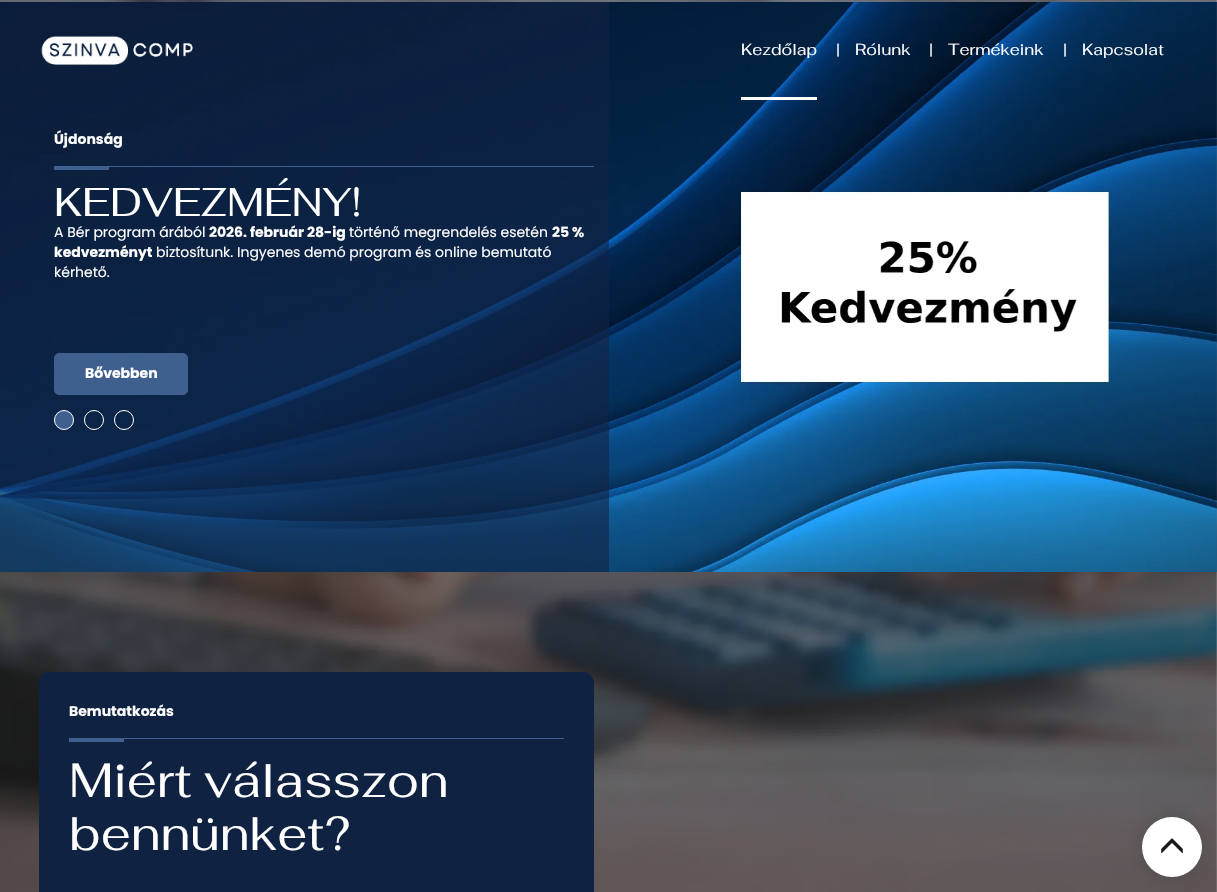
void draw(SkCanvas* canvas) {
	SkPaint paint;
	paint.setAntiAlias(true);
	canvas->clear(0xffffffff);
	canvas->drawImageRect(SkImages::DeferredFromEncodedData(SkData::MakeFromFileName("img1.png")), SkRect::MakeXYWH(0, 0, 1217, 892), SkSamplingOptions());
	canvas->drawImageRect(SkImages::DeferredFromEncodedData(SkData::MakeFromFileName("img3.png")), SkRect::MakeXYWH(0, 2, 1217, 570), SkSamplingOptions());
	paint.setColor(0x99102242);
	canvas->drawRect(SkRect::MakeXYWH(0, 2, 609, 570), paint);
	canvas->drawImageRect(SkImages::DeferredFromEncodedData(SkData::MakeFromFileName("img2.png")), SkRect::MakeXYWH(41, 35, 152, 30), SkSamplingOptions());
	SkFont f1(fontMgr->matchFamilyStyle("Fahkwang", SkFontStyle::Normal()), 16);
	f1.setSubpixel(true);
	paint.setColor(0xffffffff);
	canvas->drawString("Kezdőlap", 741, 55, f1, paint);
	canvas->drawRect(SkRect::MakeXYWH(741, 97, 76, 3), paint);
	SkFont f2(fontMgr->matchFamilyStyle("Poppins", SkFontStyle::Normal()), 14);
	f2.setSubpixel(true);
	canvas->drawString("|", 836, 55, f2, paint);
	canvas->drawString("Rólunk", 855, 55, f1, paint);
	canvas->drawString("|", 929, 55, f2, paint);
	canvas->drawString("Termékeink", 948, 55, f1, paint);
	canvas->drawString("|", 1063, 55, f2, paint);
	canvas->drawString("Kapcsolat", 1082, 55, f1, paint);
	SkFont f3(fontMgr->matchFamilyStyle("Poppins", SkFontStyle::Bold()), 14);
	f3.setSubpixel(true);
	canvas->drawString("Újdonság", 54, 144, f3, paint);
	paint.setColor(0xff3f5f8f);
	canvas->drawRect(SkRect::MakeXYWH(109, 166, 485, 1), paint);
	canvas->drawRect(SkRect::MakeXYWH(54, 166, 55, 4), paint);
	SkFont f4(fontMgr->matchFamilyStyle("Fahkwang", SkFontStyle::Normal()), 40);
	f4.setSubpixel(true);
	paint.setColor(0xffffffff);
	canvas->drawString("KEDVEZMÉNY!", 54, 216, f4, paint);
	canvas->drawString("A Bér program árából", 54, 237, f2, paint);
	canvas->drawString("2026. február 28-ig", 209, 237, f3, paint);
	canvas->drawString("történő megrendelés esetén", 349, 237, f2, paint);
	canvas->drawString("25 %", 552, 237, f3, paint);
	canvas->drawString("kedvezményt", 54, 257, f3, paint);
	canvas->drawString("biztosítunk. Ingyenes demó program és online bemutató", 156, 257, f2, paint);
	canvas->drawString("kérhető.", 54, 277, f2, paint);
	paint.setColor(0xff3f5f8f);
	canvas->drawRoundRect(SkRect::MakeXYWH(54.5, 353.5, 133, 41), 4.5, 4.5, paint);
	paint.setStroke(true);
	paint.setStrokeWidth(1);
	canvas->drawRoundRect(SkRect::MakeXYWH(54.5, 353.5, 133, 41), 4.5, 4.5, paint);
	paint.setStroke(false);
	paint.setColor(0xffffffff);
	canvas->drawString("Bővebben", 85, 378, f3, paint);
	paint.setColor(0xff3f5f8f);
	canvas->drawCircle(64, 420, 9.5, paint);
	paint.setStroke(true);
	paint.setColor(0xffffffff);
	canvas->drawCircle(64, 420, 9.5, paint);
	canvas->drawCircle(94, 420, 9.5, paint);
	canvas->drawCircle(124, 420, 9.5, paint);
	paint.setStroke(false);
	paint.setColor(0xff102242);
	canvas->drawRoundRect(SkRect::MakeXYWH(39, 672, 555, 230), 10, 10, paint);
	paint.setColor(0xffffffff);
	canvas->drawString("Bemutatkozás", 69, 716, f3, paint);
	paint.setColor(0xff3f5f8f);
	canvas->drawRect(SkRect::MakeXYWH(124, 738, 440, 1), paint);
	canvas->drawRect(SkRect::MakeXYWH(69, 738, 55, 4), paint);
	SkFont f5(fontMgr->matchFamilyStyle("Fahkwang", SkFontStyle::Normal()), 48);
	f5.setSubpixel(true);
	paint.setColor(0xffffffff);
	canvas->drawString("Miért válasszon", 69, 797, f5, paint);
	canvas->drawString("bennünket?", 69, 850, f5, paint);
	paint.setColor(0x26000000);
	paint.setMaskFilter(SkMaskFilter::MakeBlur(kNormal_SkBlurStyle, 8));
	canvas->drawRoundRect(SkRect::MakeXYWH(1141, 816, 62, 62), 31, 31, paint);
	paint.setMaskFilter(nullptr);
	paint.setColor(0xffffffff);
	canvas->drawCircle(1172, 847, 30, paint);
	canvas->drawImageRect(SkImages::DeferredFromEncodedData(SkData::MakeFromFileName("img4.png")), SkRect::MakeXYWH(1161, 838, 22, 16), SkSamplingOptions());
}
